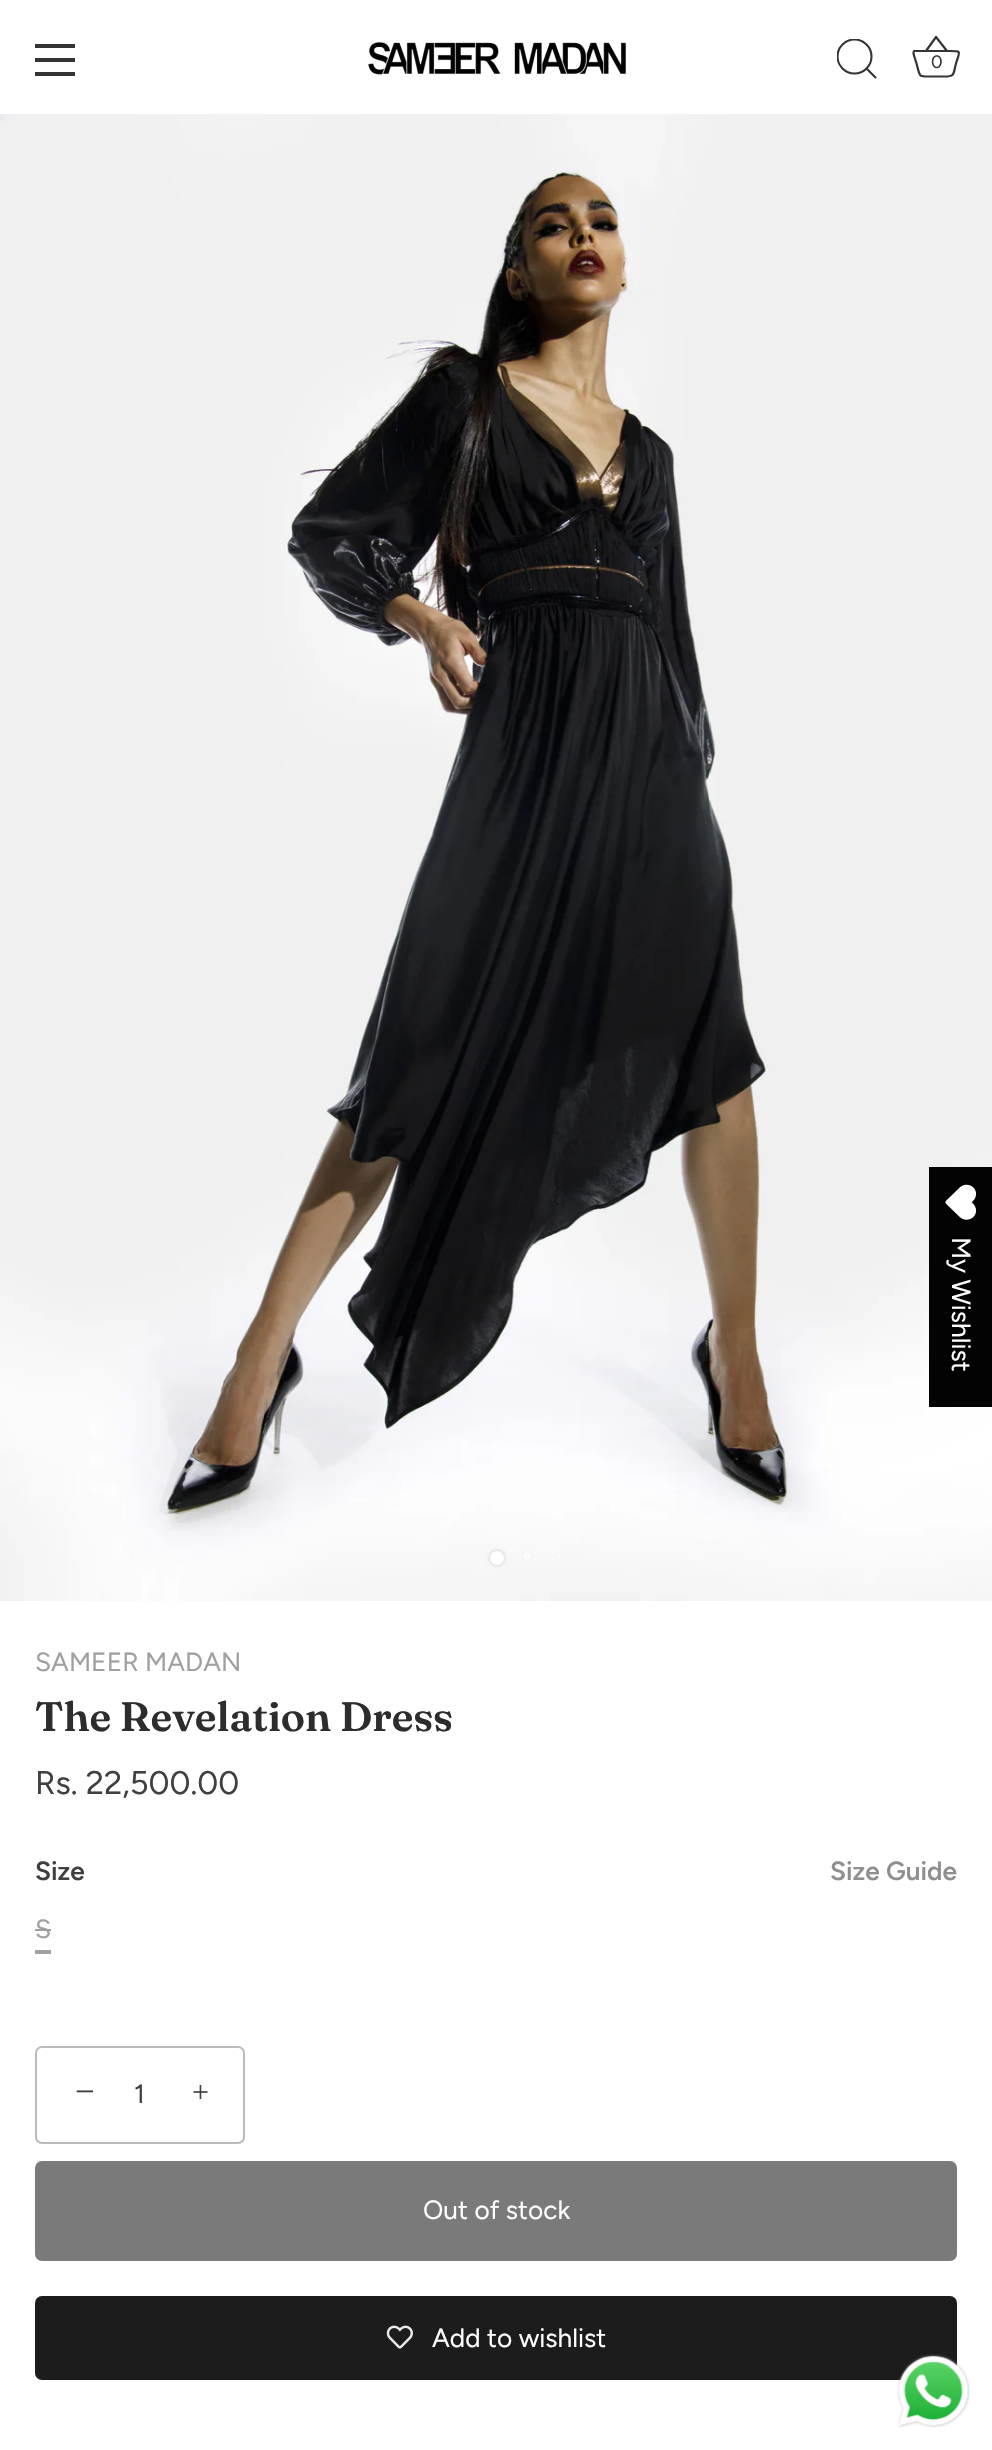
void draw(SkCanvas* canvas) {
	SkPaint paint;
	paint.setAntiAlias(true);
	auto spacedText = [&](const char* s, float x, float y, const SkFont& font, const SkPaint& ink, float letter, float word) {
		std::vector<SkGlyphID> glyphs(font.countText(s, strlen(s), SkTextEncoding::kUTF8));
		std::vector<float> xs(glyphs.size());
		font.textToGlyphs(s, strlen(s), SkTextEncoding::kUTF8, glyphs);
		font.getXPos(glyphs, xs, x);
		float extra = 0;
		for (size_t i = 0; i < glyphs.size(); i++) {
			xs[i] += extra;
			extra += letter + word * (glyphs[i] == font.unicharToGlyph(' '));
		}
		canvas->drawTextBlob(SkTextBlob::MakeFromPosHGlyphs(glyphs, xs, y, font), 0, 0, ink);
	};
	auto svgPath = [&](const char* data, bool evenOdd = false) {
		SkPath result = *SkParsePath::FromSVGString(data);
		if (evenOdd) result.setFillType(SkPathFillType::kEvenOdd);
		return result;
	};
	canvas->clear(0xffffffff);
	paint.setColor(0xff343434);
	canvas->drawRect(SkRect::MakeXYWH(35, 44, 40, 4), paint);
	canvas->drawRect(SkRect::MakeXYWH(35, 58, 40, 4), paint);
	canvas->drawRect(SkRect::MakeXYWH(35, 72, 40, 4), paint);
	canvas->drawImageRect(SkImages::DeferredFromEncodedData(SkData::MakeFromFileName("img1.png")), SkRect::MakeXYWH(368, 42, 259, 33), SkSamplingOptions());
	canvas->save();
	canvas->clipRect(SkRect::MakeXYWH(837, 39, 42, 42));
	paint.setStroke(true);
	paint.setStrokeWidth(2.1);
	canvas->drawCircle(854.5, 56.5, 17, paint);
	canvas->restore();
	paint.setStrokeCap(SkPaint::kRound_Cap);
	paint.setStrokeJoin(SkPaint::kRound_Join);
	canvas->drawPath(svgPath("M875.5 77.5L866.5 68.5"), paint);
	paint.setStrokeWidth(2.2);
	paint.setStrokeCap(SkPaint::kButt_Cap);
	canvas->drawPath(svgPath("M915.5 51C912 50.5 914 55.5 914.5 57L916.5 63.5C920.5 77.5 917.5 76.5 932 76.5H944.5C955.5 76.5 953 74 956 63.5C959.5 51 962.5 51 950 51H915.5M926 51L936 37L947 51"), paint);
	SkFont f1(fontMgr->matchFamilyStyle("Figtree", SkFontStyle::Normal()), 18);
	f1.setSubpixel(true);
	paint.setStroke(false);
	canvas->drawString("0", 931, 68, f1, paint);
	canvas->drawImageRect(SkImages::DeferredFromEncodedData(SkData::MakeFromFileName("img3.png")), SkRect::MakeXYWH(0, 114, 992, 1487), SkSamplingOptions());
	paint.setColor(0xff030303);
	canvas->drawRect(SkRect::MakeXYWH(929, 1167, 63, 240), paint);
	canvas->drawImageRect(SkImages::DeferredFromEncodedData(SkData::MakeFromFileName("img2.png")), SkRect::MakeXYWH(945, 1184, 31, 36), SkSamplingOptions());
	SkFont f2(fontMgr->matchFamilyStyle("Figtree", SkFontStyle::Normal()), 26.25);
	f2.setSubpixel(true);
	paint.setColor(0xffffffff);
	canvas->save();
	canvas->rotate(90, 952, 1237);
	canvas->drawString("My Wishlist", 952, 1237, f2, paint);
	canvas->restore();
	paint.setColor(0x33000000);
	paint.setMaskFilter(SkMaskFilter::MakeBlur(kNormal_SkBlurStyle, 2));
	canvas->drawRoundRect(SkRect::MakeXYWH(490, 1551, 14, 14), 7, 7, paint);
	paint.setMaskFilter(nullptr);
	paint.setColor(0xffffffff);
	canvas->drawCircle(497, 1558, 7, paint);
	paint.setColor(0x337c7c7c);
	paint.setMaskFilter(SkMaskFilter::MakeBlur(kNormal_SkBlurStyle, 1));
	canvas->drawRoundRect(SkRect::MakeXYWH(523, 1552, 9, 9), 4.5, 4.5, paint);
	paint.setMaskFilter(nullptr);
	paint.setColor(0xfffbfbfb);
	canvas->drawCircle(527.5, 1556.5, 4.5, paint);
	paint.setColor(0x337c7c7c);
	paint.setMaskFilter(SkMaskFilter::MakeBlur(kNormal_SkBlurStyle, 0.5));
	canvas->drawRoundRect(SkRect::MakeXYWH(557, 1554, 5, 5), 2.5, 2.5, paint);
	paint.setMaskFilter(nullptr);
	paint.setColor(0xfffbfbfb);
	canvas->drawCircle(559.5, 1556.5, 2.5, paint);
	paint.setColor(0xffa19f9f);
	canvas->drawString("SAMEER MADAN", 35, 1671, f2, paint);
	SkFont f3(fontMgr->matchFamilyStyle("Fraunces", SkFontStyle(600, SkFontStyle::kNormal_Width, SkFontStyle::kUpright_Slant)), 41);
	f3.setSubpixel(true);
	paint.setColor(0xff2e2c2c);
	canvas->drawString("The Revelation Dress", 35, 1731, f3, paint);
	SkFont f4(fontMgr->matchFamilyStyle("Figtree", SkFontStyle::Normal()), 32.75);
	f4.setSubpixel(true);
	paint.setColor(0xff423f3f);
	canvas->drawString("Rs. 22,500.00", 35, 1794, f4, paint);
	SkFont f5(fontMgr->matchFamilyStyle("Figtree", SkFontStyle(600, SkFontStyle::kNormal_Width, SkFontStyle::kUpright_Slant)), 26.25);
	f5.setSubpixel(true);
	canvas->drawString("Size", 35, 1880, f5, paint);
	paint.setColor(0xff908e8e);
	canvas->drawString("Size Guide", 830, 1880, f5, paint);
	paint.setColor(0xffa19f9f);
	canvas->drawString("S", 35, 1938, f2, paint);
	canvas->drawRect(SkRect::MakeXYWH(35, 1929, 16, 2), paint);
	canvas->drawRect(SkRect::MakeXYWH(35, 1950, 16, 4), paint);
	paint.setStroke(true);
	paint.setStrokeWidth(2);
	paint.setStrokeJoin(SkPaint::kMiter_Join);
	paint.setColor(0xffbbbbbb);
	canvas->drawRoundRect(SkRect::MakeXYWH(36, 2047, 208, 96), 6, 6, paint);
	SkFont f6(fontMgr->matchFamilyStyle("Liberation Serif", SkFontStyle::Normal()), 35);
	f6.setSubpixel(true);
	paint.setStroke(false);
	paint.setColor(0xff423f3f);
	canvas->drawString("−", 75, 2103, f6, paint);
	spacedText("1", 134, 2103, f2, paint, 1, 0);
	SkFont f7(fontMgr->matchFamilyStyle("Liberation Serif", SkFontStyle::Normal()), 30);
	f7.setSubpixel(true);
	canvas->drawString("+", 192, 2102, f7, paint);
	paint.setColor(0xff7a7a7a);
	canvas->drawRoundRect(SkRect::MakeXYWH(36, 2162, 920, 98), 6, 6, paint);
	paint.setStroke(true);
	canvas->drawRoundRect(SkRect::MakeXYWH(36, 2162, 920, 98), 6, 6, paint);
	paint.setStroke(false);
	paint.setColor(0xffffffff);
	canvas->drawString("Out of stock", 423, 2219, f2, paint);
	paint.setColor(0xff1c1c1c);
	canvas->drawRoundRect(SkRect::MakeXYWH(35, 2296, 922, 84), 7, 7, paint);
	canvas->drawImageRect(SkImages::DeferredFromEncodedData(SkData::MakeFromFileName("img4.png")), SkRect::MakeXYWH(386, 2325, 27, 24), SkSamplingOptions());
	paint.setColor(0xffffffff);
	canvas->drawString("Add to wishlist", 432, 2347, f2, paint);
	canvas->drawImageRect(SkImages::DeferredFromEncodedData(SkData::MakeFromFileName("img5.png")), SkRect::MakeXYWH(897, 2354, 74, 74), SkSamplingOptions());
}
